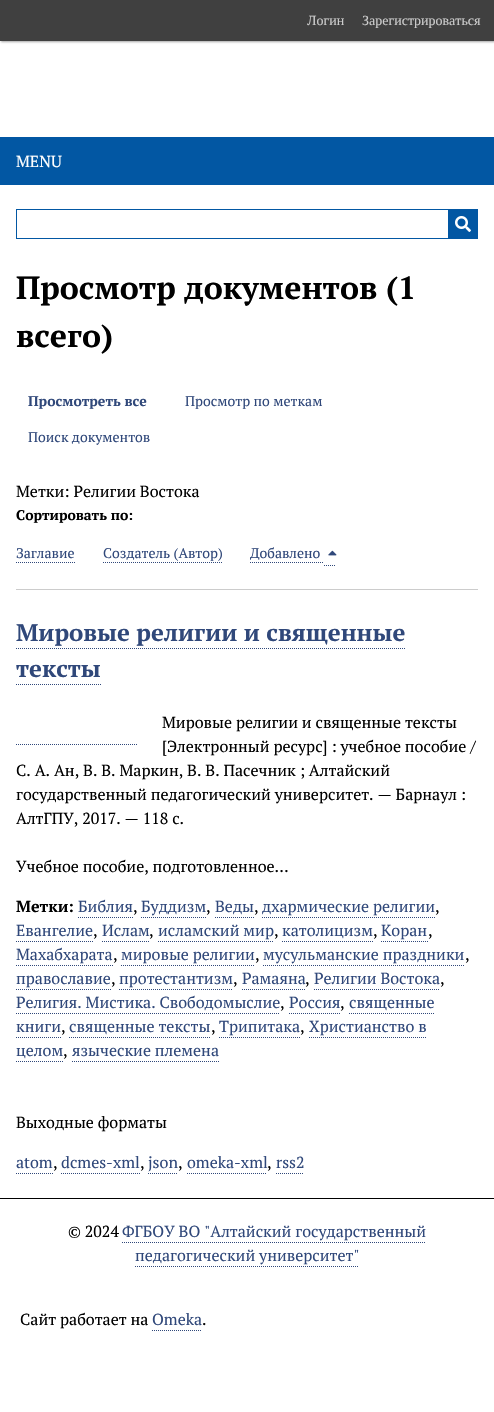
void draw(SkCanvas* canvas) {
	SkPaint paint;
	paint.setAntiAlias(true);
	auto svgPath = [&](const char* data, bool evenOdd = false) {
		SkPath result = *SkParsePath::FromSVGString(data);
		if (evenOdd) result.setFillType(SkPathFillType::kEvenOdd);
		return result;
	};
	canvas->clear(0xffffffff);
	paint.setColor(0x59000000);
	paint.setMaskFilter(SkMaskFilter::MakeBlur(kNormal_SkBlurStyle, 1));
	canvas->drawRect(SkRect::MakeXYWH(1, 1, 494, 41), paint);
	paint.setMaskFilter(nullptr);
	paint.setColor(0xff404040);
	canvas->drawRect(SkRect::MakeXYWH(0, 0, 494, 41), paint);
	SkFont f1(fontMgr->matchFamilyStyle("Liberation Serif", SkFontStyle::Normal()), 14);
	f1.setSubpixel(true);
	paint.setColor(0xffcccccc);
	canvas->drawString("Логин", 307, 25, f1, paint);
	canvas->drawString("Зарегистрироваться", 362, 25, f1, paint);
	paint.setColor(0xff0257a3);
	canvas->drawRect(SkRect::MakeXYWH(0, 137, 494, 48), paint);
	SkFont f2(fontMgr->matchFamilyStyle("PT Serif", SkFontStyle::Normal()), 16);
	f2.setSubpixel(true);
	paint.setColor(0xffffffff);
	canvas->drawString("MENU", 16, 167, f2, paint);
	paint.setStroke(true);
	paint.setStrokeWidth(1);
	paint.setColor(0xff0257a3);
	canvas->drawRect(SkRect::MakeXYWH(16.5, 209.5, 461, 29), paint);
	paint.setStroke(false);
	canvas->drawRect(SkRect::MakeXYWH(448, 210, 29, 28), paint);
	canvas->drawImageRect(SkImages::DeferredFromEncodedData(SkData::MakeFromFileName("img1.png")), SkRect::MakeXYWH(455, 216, 16, 16), SkSamplingOptions());
	SkFont f3(fontMgr->matchFamilyStyle("PT Serif", SkFontStyle::Bold()), 32);
	f3.setSubpixel(true);
	paint.setColor(0xff000000);
	canvas->drawString("Просмотр документов (1", 16, 299, f3, paint);
	canvas->drawString("всего)", 16, 347, f3, paint);
	SkFont f4(fontMgr->matchFamilyStyle("PT Serif", SkFontStyle::Bold()), 14);
	f4.setSubpixel(true);
	paint.setColor(0xff30487a);
	canvas->drawString("Просмотреть все", 28, 406, f4, paint);
	SkFont f5(fontMgr->matchFamilyStyle("PT Serif", SkFontStyle::Normal()), 14);
	f5.setSubpixel(true);
	canvas->drawString("Просмотр по меткам", 185, 406, f5, paint);
	canvas->drawString("Поиск документов", 28, 442, f5, paint);
	paint.setColor(0xff000000);
	canvas->drawString("Метки: Религии Востока", 16, 497, f2, paint);
	canvas->drawString("Сортировать по:", 16, 520, f4, paint);
	paint.setColor(0xff30487a);
	canvas->drawString("Заглавие", 16, 558, f5, paint);
	paint.setStroke(true);
	paint.setPathEffect(SkDashPathEffect::Make({{1, 1}}, 0));
	canvas->drawPath(svgPath("M16 562.5H75"), paint);
	paint.setPathEffect(nullptr);
	paint.setStroke(false);
	canvas->drawString("Создатель (Автор)", 103, 558, f5, paint);
	paint.setStroke(true);
	paint.setPathEffect(SkDashPathEffect::Make({{1, 1}}, 0));
	canvas->drawPath(svgPath("M103 562.5H222"), paint);
	paint.setPathEffect(nullptr);
	paint.setPathEffect(SkDashPathEffect::Make({{1, 1}}, 0));
	canvas->drawPath(svgPath("M250 562.5H324"), paint);
	paint.setPathEffect(nullptr);
	paint.setPathEffect(SkDashPathEffect::Make({{1, 1}}, 0));
	canvas->drawPath(svgPath("M324 565.5H336"), paint);
	paint.setPathEffect(nullptr);
	paint.setStroke(false);
	canvas->drawString("Добавлено", 250, 558, f5, paint);
	canvas->drawImageRect(SkImages::DeferredFromEncodedData(SkData::MakeFromFileName("img2.png")), SkRect::MakeXYWH(328, 550, 9, 6), SkSamplingOptions());
	paint.setColor(0xffcccccc);
	canvas->drawRect(SkRect::MakeXYWH(16, 589, 462, 1), paint);
	SkFont f6(fontMgr->matchFamilyStyle("PT Serif", SkFontStyle::Bold()), 24);
	f6.setSubpixel(true);
	paint.setColor(0xff30487a);
	canvas->drawString("Мировые религии и священные", 16, 641, f6, paint);
	paint.setStroke(true);
	paint.setPathEffect(SkDashPathEffect::Make({{1, 1}}, 0));
	canvas->drawPath(svgPath("M16 648.5H405"), paint);
	paint.setPathEffect(nullptr);
	paint.setStroke(false);
	canvas->drawString("тексты", 16, 677, f6, paint);
	paint.setStroke(true);
	paint.setPathEffect(SkDashPathEffect::Make({{1, 1}}, 0));
	canvas->drawPath(svgPath("M16 684.5H101"), paint);
	paint.setPathEffect(nullptr);
	paint.setStroke(false);
	paint.setColor(0xff000000);
	canvas->drawString("Мировые религии и священные тексты", 162, 728, f2, paint);
	canvas->drawString("[Электронный ресурс] : учебное пособие /", 162, 752, f2, paint);
	canvas->drawString("С. А. Ан, В. В. Маркин, В. В. Пасечник ; Алтайский", 16, 776, f2, paint);
	canvas->drawString("государственный педагогический университет. — Барнаул :", 16, 800, f2, paint);
	canvas->drawString("АлтГПУ, 2017. — 118 с.", 16, 824, f2, paint);
	canvas->drawString("Учебное пособие, подготовленное…", 16, 872, f2, paint);
	paint.setStroke(true);
	paint.setColor(0xff30487a);
	paint.setPathEffect(SkDashPathEffect::Make({{1, 1}}, 0));
	canvas->drawPath(svgPath("M16 744.5H138"), paint);
	paint.setPathEffect(nullptr);
	SkFont f7(fontMgr->matchFamilyStyle("PT Serif", SkFontStyle::Bold()), 16);
	f7.setSubpixel(true);
	paint.setStroke(false);
	paint.setColor(0xff000000);
	canvas->drawString("Метки:", 16, 912, f7, paint);
	paint.setColor(0xff30487a);
	canvas->drawString("Библия", 78, 912, f2, paint);
	paint.setStroke(true);
	paint.setPathEffect(SkDashPathEffect::Make({{1, 1}}, 0));
	canvas->drawPath(svgPath("M78 917.5H133"), paint);
	paint.setPathEffect(nullptr);
	paint.setStroke(false);
	paint.setColor(0xff000000);
	canvas->drawString(",", 133, 912, f2, paint);
	paint.setColor(0xff30487a);
	canvas->drawString("Буддизм", 141, 912, f2, paint);
	paint.setStroke(true);
	paint.setPathEffect(SkDashPathEffect::Make({{1, 1}}, 0));
	canvas->drawPath(svgPath("M141 917.5H206"), paint);
	paint.setPathEffect(nullptr);
	paint.setStroke(false);
	paint.setColor(0xff000000);
	canvas->drawString(",", 206, 912, f2, paint);
	paint.setColor(0xff30487a);
	canvas->drawString("Веды", 215, 912, f2, paint);
	paint.setStroke(true);
	paint.setPathEffect(SkDashPathEffect::Make({{1, 1}}, 0));
	canvas->drawPath(svgPath("M215 917.5H254"), paint);
	paint.setPathEffect(nullptr);
	paint.setStroke(false);
	paint.setColor(0xff000000);
	canvas->drawString(",", 254, 912, f2, paint);
	paint.setColor(0xff30487a);
	canvas->drawString("дхармические религии", 262, 912, f2, paint);
	paint.setStroke(true);
	paint.setPathEffect(SkDashPathEffect::Make({{1, 1}}, 0));
	canvas->drawPath(svgPath("M262 917.5H435"), paint);
	paint.setPathEffect(nullptr);
	paint.setStroke(false);
	paint.setColor(0xff000000);
	canvas->drawString(",", 435, 912, f2, paint);
	paint.setColor(0xff30487a);
	canvas->drawString("Евангелие", 16, 936, f2, paint);
	paint.setStroke(true);
	paint.setPathEffect(SkDashPathEffect::Make({{1, 1}}, 0));
	canvas->drawPath(svgPath("M16 941.5H93"), paint);
	paint.setPathEffect(nullptr);
	paint.setStroke(false);
	paint.setColor(0xff000000);
	canvas->drawString(",", 93, 936, f2, paint);
	paint.setColor(0xff30487a);
	canvas->drawString("Ислам", 102, 936, f2, paint);
	paint.setStroke(true);
	paint.setPathEffect(SkDashPathEffect::Make({{1, 1}}, 0));
	canvas->drawPath(svgPath("M102 941.5H149"), paint);
	paint.setPathEffect(nullptr);
	paint.setStroke(false);
	paint.setColor(0xff000000);
	canvas->drawString(",", 149, 936, f2, paint);
	paint.setColor(0xff30487a);
	canvas->drawString("исламский мир", 158, 936, f2, paint);
	paint.setStroke(true);
	paint.setPathEffect(SkDashPathEffect::Make({{1, 1}}, 0));
	canvas->drawPath(svgPath("M158 941.5H274"), paint);
	paint.setPathEffect(nullptr);
	paint.setStroke(false);
	paint.setColor(0xff000000);
	canvas->drawString(",", 274, 936, f2, paint);
	paint.setColor(0xff30487a);
	canvas->drawString("католицизм", 282, 936, f2, paint);
	paint.setStroke(true);
	paint.setPathEffect(SkDashPathEffect::Make({{1, 1}}, 0));
	canvas->drawPath(svgPath("M282 941.5H373"), paint);
	paint.setPathEffect(nullptr);
	paint.setStroke(false);
	paint.setColor(0xff000000);
	canvas->drawString(",", 373, 936, f2, paint);
	paint.setColor(0xff30487a);
	canvas->drawString("Коран", 381, 936, f2, paint);
	paint.setStroke(true);
	paint.setPathEffect(SkDashPathEffect::Make({{1, 1}}, 0));
	canvas->drawPath(svgPath("M381 941.5H428"), paint);
	paint.setPathEffect(nullptr);
	paint.setStroke(false);
	paint.setColor(0xff000000);
	canvas->drawString(",", 428, 936, f2, paint);
	paint.setColor(0xff30487a);
	canvas->drawString("Махабхарата", 16, 960, f2, paint);
	paint.setStroke(true);
	paint.setPathEffect(SkDashPathEffect::Make({{1, 1}}, 0));
	canvas->drawPath(svgPath("M16 965.5H113"), paint);
	paint.setPathEffect(nullptr);
	paint.setStroke(false);
	paint.setColor(0xff000000);
	canvas->drawString(",", 113, 960, f2, paint);
	paint.setColor(0xff30487a);
	canvas->drawString("мировые религии", 121, 960, f2, paint);
	paint.setStroke(true);
	paint.setPathEffect(SkDashPathEffect::Make({{1, 1}}, 0));
	canvas->drawPath(svgPath("M121 965.5H255"), paint);
	paint.setPathEffect(nullptr);
	paint.setStroke(false);
	paint.setColor(0xff000000);
	canvas->drawString(",", 255, 960, f2, paint);
	paint.setColor(0xff30487a);
	canvas->drawString("мусульманские праздники", 263, 960, f2, paint);
	paint.setStroke(true);
	paint.setPathEffect(SkDashPathEffect::Make({{1, 1}}, 0));
	canvas->drawPath(svgPath("M263 965.5H465"), paint);
	paint.setPathEffect(nullptr);
	paint.setStroke(false);
	paint.setColor(0xff000000);
	canvas->drawString(",", 465, 960, f2, paint);
	paint.setColor(0xff30487a);
	canvas->drawString("православие", 16, 984, f2, paint);
	paint.setStroke(true);
	paint.setPathEffect(SkDashPathEffect::Make({{1, 1}}, 0));
	canvas->drawPath(svgPath("M16 989.5H111"), paint);
	paint.setPathEffect(nullptr);
	paint.setStroke(false);
	paint.setColor(0xff000000);
	canvas->drawString(",", 111, 984, f2, paint);
	paint.setColor(0xff30487a);
	canvas->drawString("протестантизм", 119, 984, f2, paint);
	paint.setStroke(true);
	paint.setPathEffect(SkDashPathEffect::Make({{1, 1}}, 0));
	canvas->drawPath(svgPath("M119 989.5H233"), paint);
	paint.setPathEffect(nullptr);
	paint.setStroke(false);
	paint.setColor(0xff000000);
	canvas->drawString(",", 233, 984, f2, paint);
	paint.setColor(0xff30487a);
	canvas->drawString("Рамаяна", 242, 984, f2, paint);
	paint.setStroke(true);
	paint.setPathEffect(SkDashPathEffect::Make({{1, 1}}, 0));
	canvas->drawPath(svgPath("M242 989.5H305"), paint);
	paint.setPathEffect(nullptr);
	paint.setStroke(false);
	paint.setColor(0xff000000);
	canvas->drawString(",", 305, 984, f2, paint);
	paint.setColor(0xff30487a);
	canvas->drawString("Религии Востока", 314, 984, f2, paint);
	paint.setStroke(true);
	paint.setPathEffect(SkDashPathEffect::Make({{1, 1}}, 0));
	canvas->drawPath(svgPath("M314 989.5H440"), paint);
	paint.setPathEffect(nullptr);
	paint.setStroke(false);
	paint.setColor(0xff000000);
	canvas->drawString(",", 440, 984, f2, paint);
	paint.setColor(0xff30487a);
	canvas->drawString("Религия. Мистика. Свободомыслие", 16, 1008, f2, paint);
	paint.setStroke(true);
	paint.setPathEffect(SkDashPathEffect::Make({{1, 1}}, 0));
	canvas->drawPath(svgPath("M16 1013.5H280"), paint);
	paint.setPathEffect(nullptr);
	paint.setStroke(false);
	paint.setColor(0xff000000);
	canvas->drawString(",", 280, 1008, f2, paint);
	paint.setColor(0xff30487a);
	canvas->drawString("Россия", 289, 1008, f2, paint);
	paint.setStroke(true);
	paint.setPathEffect(SkDashPathEffect::Make({{1, 1}}, 0));
	canvas->drawPath(svgPath("M289 1013.5H340"), paint);
	paint.setPathEffect(nullptr);
	paint.setStroke(false);
	paint.setColor(0xff000000);
	canvas->drawString(",", 340, 1008, f2, paint);
	paint.setColor(0xff30487a);
	canvas->drawString("священные", 349, 1008, f2, paint);
	paint.setStroke(true);
	paint.setPathEffect(SkDashPathEffect::Make({{1, 1}}, 0));
	canvas->drawPath(svgPath("M349 1013.5H434"), paint);
	paint.setPathEffect(nullptr);
	paint.setStroke(false);
	canvas->drawString("книги", 16, 1032, f2, paint);
	paint.setStroke(true);
	paint.setPathEffect(SkDashPathEffect::Make({{1, 1}}, 0));
	canvas->drawPath(svgPath("M16 1037.5H61"), paint);
	paint.setPathEffect(nullptr);
	paint.setStroke(false);
	canvas->drawString("священные тексты", 69, 1032, f2, paint);
	paint.setStroke(true);
	paint.setPathEffect(SkDashPathEffect::Make({{1, 1}}, 0));
	canvas->drawPath(svgPath("M69 1037.5H211"), paint);
	paint.setPathEffect(nullptr);
	paint.setStroke(false);
	canvas->drawString("Трипитака", 219, 1032, f2, paint);
	paint.setStroke(true);
	paint.setPathEffect(SkDashPathEffect::Make({{1, 1}}, 0));
	canvas->drawPath(svgPath("M219 1037.5H300"), paint);
	paint.setPathEffect(nullptr);
	paint.setStroke(false);
	canvas->drawString("Христианство в", 309, 1032, f2, paint);
	paint.setStroke(true);
	paint.setPathEffect(SkDashPathEffect::Make({{1, 1}}, 0));
	canvas->drawPath(svgPath("M309 1037.5H426"), paint);
	paint.setPathEffect(nullptr);
	paint.setStroke(false);
	paint.setColor(0xff000000);
	canvas->drawString(",", 61, 1032, f2, paint);
	canvas->drawString(",", 211, 1032, f2, paint);
	canvas->drawString(",", 300, 1032, f2, paint);
	paint.setColor(0xff30487a);
	canvas->drawString("целом", 16, 1056, f2, paint);
	paint.setStroke(true);
	paint.setPathEffect(SkDashPathEffect::Make({{1, 1}}, 0));
	canvas->drawPath(svgPath("M16 1061.5H63"), paint);
	paint.setPathEffect(nullptr);
	paint.setStroke(false);
	paint.setColor(0xff000000);
	canvas->drawString(",", 63, 1056, f2, paint);
	paint.setColor(0xff30487a);
	canvas->drawString("языческие племена", 72, 1056, f2, paint);
	paint.setStroke(true);
	paint.setPathEffect(SkDashPathEffect::Make({{1, 1}}, 0));
	canvas->drawPath(svgPath("M72 1061.5H219"), paint);
	paint.setPathEffect(nullptr);
	paint.setStroke(false);
	paint.setColor(0xff000000);
	canvas->drawString("Выходные форматы", 16, 1128, f2, paint);
	paint.setColor(0xff30487a);
	canvas->drawString("atom", 16, 1168, f2, paint);
	paint.setStroke(true);
	paint.setPathEffect(SkDashPathEffect::Make({{1, 1}}, 0));
	canvas->drawPath(svgPath("M16 1173.5H53"), paint);
	paint.setPathEffect(nullptr);
	paint.setStroke(false);
	paint.setColor(0xff000000);
	canvas->drawString(",", 53, 1168, f2, paint);
	paint.setColor(0xff30487a);
	canvas->drawString("dcmes-xml", 61, 1168, f2, paint);
	paint.setStroke(true);
	paint.setPathEffect(SkDashPathEffect::Make({{1, 1}}, 0));
	canvas->drawPath(svgPath("M61 1173.5H140"), paint);
	paint.setPathEffect(nullptr);
	paint.setStroke(false);
	paint.setColor(0xff000000);
	canvas->drawString(",", 140, 1168, f2, paint);
	paint.setColor(0xff30487a);
	canvas->drawString("json", 148, 1168, f2, paint);
	paint.setStroke(true);
	paint.setPathEffect(SkDashPathEffect::Make({{1, 1}}, 0));
	canvas->drawPath(svgPath("M148 1173.5H178"), paint);
	paint.setPathEffect(nullptr);
	paint.setStroke(false);
	paint.setColor(0xff000000);
	canvas->drawString(",", 178, 1168, f2, paint);
	paint.setColor(0xff30487a);
	canvas->drawString("omeka-xml", 187, 1168, f2, paint);
	paint.setStroke(true);
	paint.setPathEffect(SkDashPathEffect::Make({{1, 1}}, 0));
	canvas->drawPath(svgPath("M187 1173.5H267"), paint);
	paint.setPathEffect(nullptr);
	paint.setStroke(false);
	paint.setColor(0xff000000);
	canvas->drawString(",", 267, 1168, f2, paint);
	paint.setColor(0xff30487a);
	canvas->drawString("rss2", 276, 1168, f2, paint);
	paint.setStroke(true);
	paint.setPathEffect(SkDashPathEffect::Make({{1, 1}}, 0));
	canvas->drawPath(svgPath("M276 1173.5H304"), paint);
	paint.setPathEffect(nullptr);
	paint.setStroke(false);
	paint.setColor(0xff000000);
	canvas->drawRect(SkRect::MakeXYWH(0, 1198, 494, 1), paint);
	canvas->drawString("© 2024", 68, 1237, f2, paint);
	paint.setColor(0xff30487a);
	canvas->drawString("ФГБОУ ВО \"Алтайский государственный", 122, 1237, f2, paint);
	paint.setStroke(true);
	paint.setPathEffect(SkDashPathEffect::Make({{1, 1}}, 0));
	canvas->drawPath(svgPath("M122 1242.5H426"), paint);
	paint.setPathEffect(nullptr);
	paint.setStroke(false);
	canvas->drawString("педагогический университет\"", 135, 1261, f2, paint);
	paint.setStroke(true);
	paint.setPathEffect(SkDashPathEffect::Make({{1, 1}}, 0));
	canvas->drawPath(svgPath("M135 1266.5H359"), paint);
	paint.setPathEffect(nullptr);
	paint.setStroke(false);
	paint.setColor(0xff000000);
	canvas->drawString("Сайт работает на", 20, 1325, f2, paint);
	paint.setColor(0xff30487a);
	canvas->drawString("Omeka", 152, 1325, f2, paint);
	paint.setStroke(true);
	paint.setPathEffect(SkDashPathEffect::Make({{1, 1}}, 0));
	canvas->drawPath(svgPath("M152 1330.5H202"), paint);
	paint.setPathEffect(nullptr);
	paint.setStroke(false);
	paint.setColor(0xff000000);
	canvas->drawString(".", 202, 1325, f2, paint);
}
